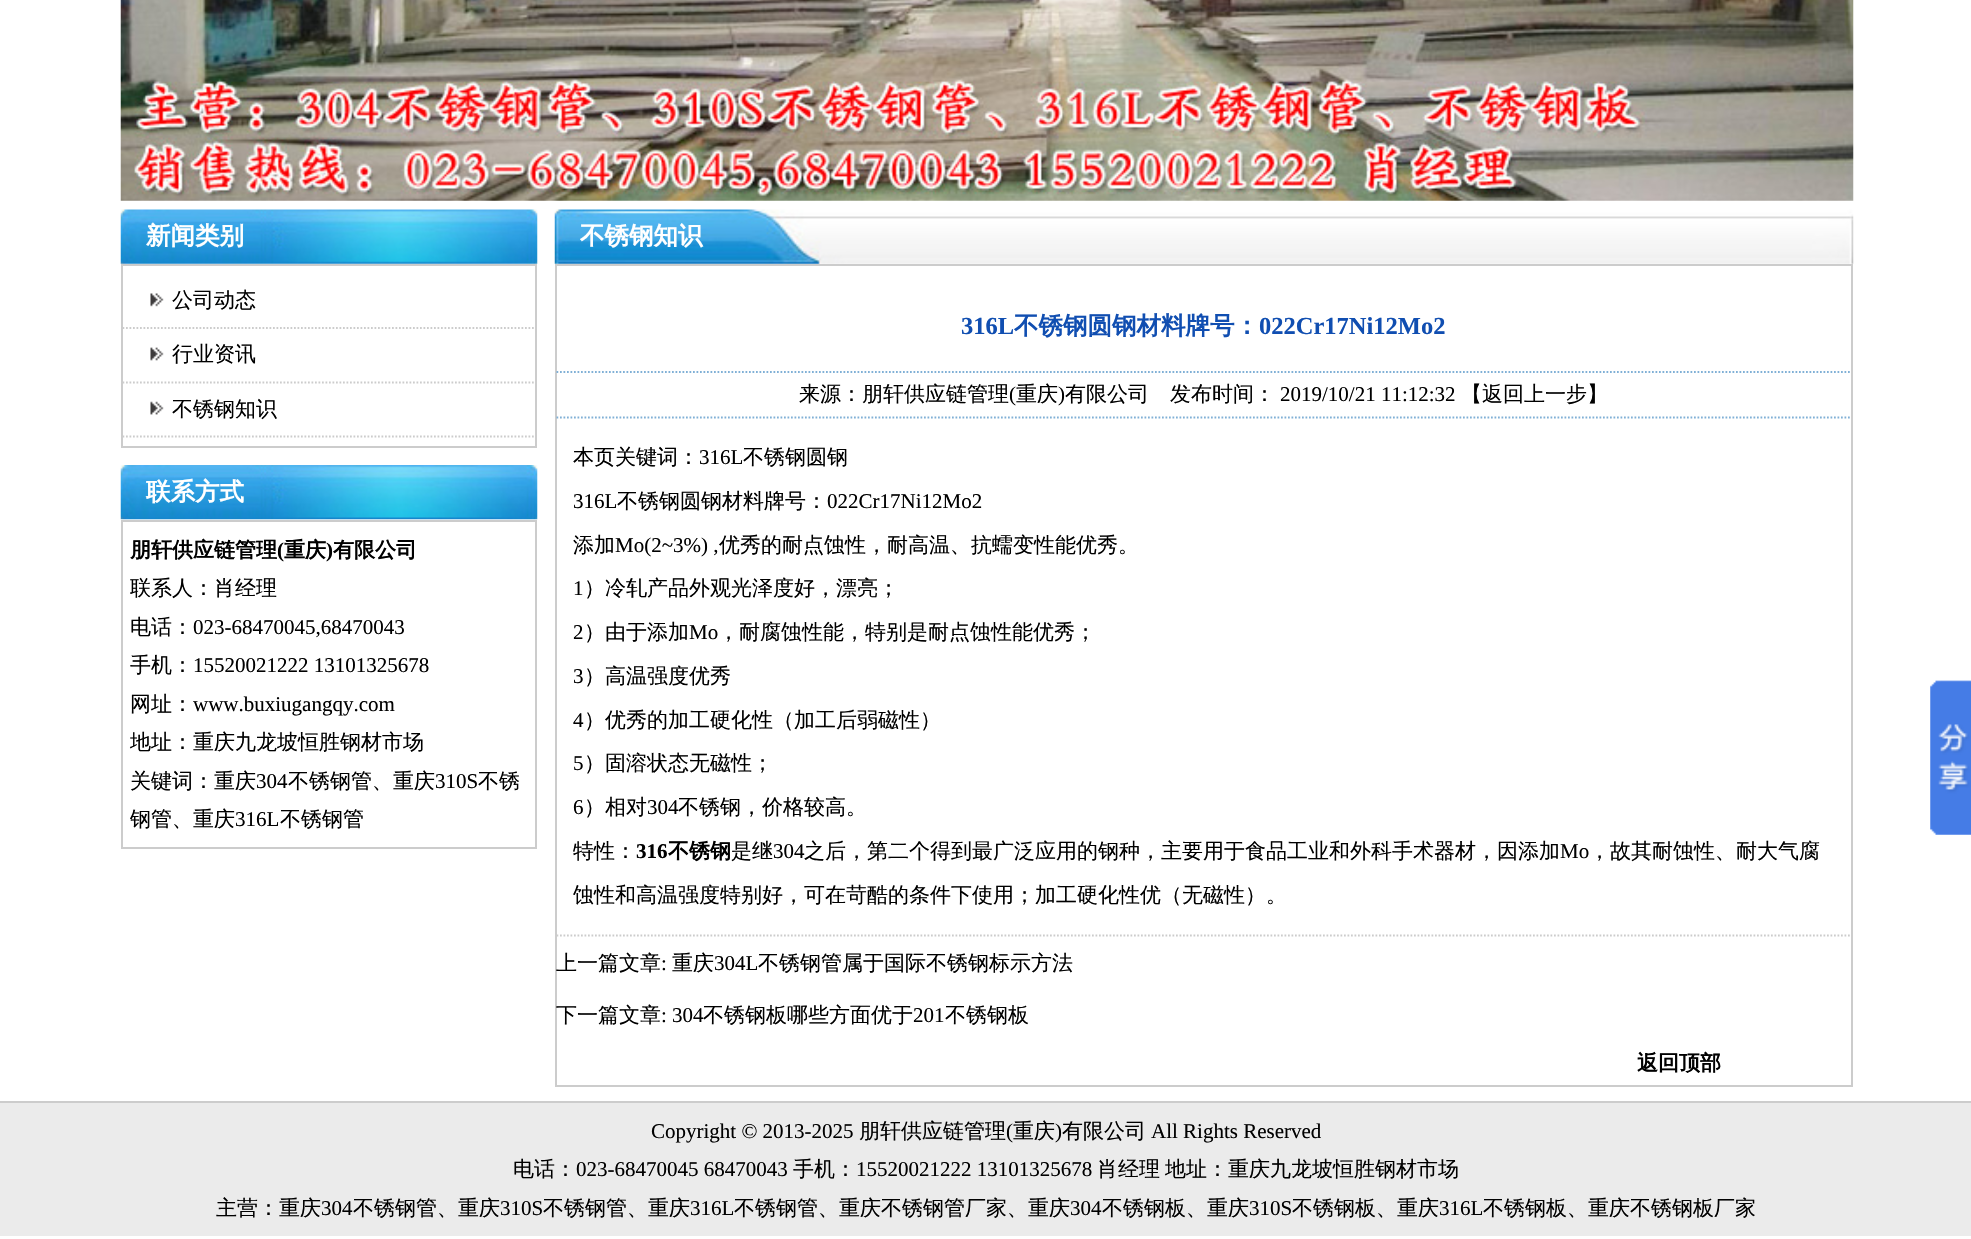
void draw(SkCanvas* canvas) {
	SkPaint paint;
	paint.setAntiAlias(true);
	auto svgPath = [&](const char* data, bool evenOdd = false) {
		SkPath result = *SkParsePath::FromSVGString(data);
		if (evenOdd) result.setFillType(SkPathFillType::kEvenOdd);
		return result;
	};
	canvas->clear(0xffffffff);
	canvas->drawImageRect(SkImages::DeferredFromEncodedData(SkData::MakeFromFileName("img1.png")), SkRect::MakeXYWH(120, 0, 1734, 201), SkSamplingOptions());
	canvas->drawImageRect(SkImages::DeferredFromEncodedData(SkData::MakeFromFileName("img2.png")), SkRect::MakeXYWH(120, 209, 418, 55), SkSamplingOptions());
	SkFont f1(fontMgr->matchFamilyStyle("WenQuanYi Zen Hei", SkFontStyle::Bold()), 24.5);
	f1.setSubpixel(true);
	paint.setColor(0xffffffff);
	canvas->drawString("新闻类别", 146, 244, f1, paint);
	paint.setStroke(true);
	paint.setStrokeWidth(2);
	paint.setColor(0xffcccccc);
	canvas->drawRect(SkRect::MakeXYWH(122, 265, 414, 182), paint);
	paint.setStrokeWidth(1.8);
	paint.setPathEffect(SkDashPathEffect::Make({{1.75f, 1.75f}}, 0));
	canvas->drawPath(svgPath("M122.5 328H535.5"), paint);
	paint.setPathEffect(nullptr);
	canvas->drawImageRect(SkImages::DeferredFromEncodedData(SkData::MakeFromFileName("img3.png")), SkRect::MakeXYWH(150, 293, 14, 14), SkSamplingOptions());
	SkFont f2(fontMgr->matchFamilyStyle("WenQuanYi Zen Hei", SkFontStyle(500, SkFontStyle::kNormal_Width, SkFontStyle::kUpright_Slant)), 21);
	f2.setSubpixel(true);
	paint.setStroke(false);
	paint.setColor(0xff000000);
	canvas->drawString("公司动态", 172, 307, f2, paint);
	paint.setStroke(true);
	paint.setColor(0xffcccccc);
	paint.setPathEffect(SkDashPathEffect::Make({{1.75f, 1.75f}}, 0));
	canvas->drawPath(svgPath("M122.5 382.5H535.5"), paint);
	paint.setPathEffect(nullptr);
	canvas->drawImageRect(SkImages::DeferredFromEncodedData(SkData::MakeFromFileName("img4.png")), SkRect::MakeXYWH(150, 347, 14, 14), SkSamplingOptions());
	paint.setStroke(false);
	paint.setColor(0xff000000);
	canvas->drawString("行业资讯", 172, 361, f2, paint);
	paint.setStroke(true);
	paint.setColor(0xffcccccc);
	paint.setPathEffect(SkDashPathEffect::Make({{1.75f, 1.75f}}, 0));
	canvas->drawPath(svgPath("M122.5 436.5H535.5"), paint);
	paint.setPathEffect(nullptr);
	canvas->drawImageRect(SkImages::DeferredFromEncodedData(SkData::MakeFromFileName("img5.png")), SkRect::MakeXYWH(150, 401, 14, 14), SkSamplingOptions());
	paint.setStroke(false);
	paint.setColor(0xff000000);
	canvas->drawString("不锈钢知识", 172, 416, f2, paint);
	canvas->drawImageRect(SkImages::DeferredFromEncodedData(SkData::MakeFromFileName("img6.png")), SkRect::MakeXYWH(120, 465, 418, 55), SkSamplingOptions());
	paint.setColor(0xffffffff);
	canvas->drawString("联系方式", 146, 500, f1, paint);
	paint.setStroke(true);
	paint.setStrokeWidth(2);
	paint.setColor(0xffcccccc);
	canvas->drawRect(SkRect::MakeXYWH(122, 521, 414, 327), paint);
	SkFont f3(fontMgr->matchFamilyStyle("WenQuanYi Zen Hei", SkFontStyle::Bold()), 21);
	f3.setSubpixel(true);
	paint.setStroke(false);
	paint.setColor(0xff000000);
	canvas->drawString("朋轩供应链管理", 130, 557, f3, paint);
	SkFont f4(fontMgr->matchFamilyStyle("Liberation Serif", SkFontStyle::Bold()), 21);
	f4.setSubpixel(true);
	canvas->drawString("(", 277, 557, f4, paint);
	canvas->drawString("重庆", 284, 557, f3, paint);
	canvas->drawString(")", 326, 557, f4, paint);
	canvas->drawString("有限公司", 333, 557, f3, paint);
	canvas->drawString("联系人：肖经理", 130, 595, f2, paint);
	canvas->drawString("电话：", 130, 634, f2, paint);
	SkFont f5(fontMgr->matchFamilyStyle("Liberation Serif", SkFontStyle::Normal()), 21);
	f5.setSubpixel(true);
	canvas->drawString("023-68470045,68470043", 193, 634, f5, paint);
	canvas->drawString("手机：", 130, 672, f2, paint);
	canvas->drawString("15520021222 13101325678", 193, 672, f5, paint);
	canvas->drawString("网址：", 130, 711, f2, paint);
	canvas->drawString("www.buxiugangqy.com", 193, 711, f5, paint);
	canvas->drawString("地址：重庆九龙坡恒胜钢材市场", 130, 749, f2, paint);
	canvas->drawString("关键词：重庆", 130, 788, f2, paint);
	canvas->drawString("304", 256, 788, f5, paint);
	canvas->drawString("不锈钢管、重庆", 288, 788, f2, paint);
	canvas->drawString("310S", 435, 788, f5, paint);
	canvas->drawString("不锈", 478, 788, f2, paint);
	canvas->drawString("钢管、重庆", 130, 826, f2, paint);
	canvas->drawString("316L", 235, 826, f5, paint);
	canvas->drawString("不锈钢管", 280, 826, f2, paint);
	canvas->drawImageRect(SkImages::DeferredFromEncodedData(SkData::MakeFromFileName("img7.png")), SkRect::MakeXYWH(554, 209, 1300, 55), SkSamplingOptions());
	paint.setColor(0xffffffff);
	canvas->drawString("不锈钢知识", 580, 244, f1, paint);
	paint.setStroke(true);
	paint.setColor(0xffcccccc);
	canvas->drawRect(SkRect::MakeXYWH(556, 265, 1296, 821), paint);
	paint.setStrokeWidth(1.8);
	paint.setColor(0xff80b0d6);
	paint.setPathEffect(SkDashPathEffect::Make({{1.75f, 1.75f}}, 0));
	canvas->drawPath(svgPath("M556.5 372H1851.5"), paint);
	paint.setPathEffect(nullptr);
	SkFont f6(fontMgr->matchFamilyStyle("Liberation Serif", SkFontStyle::Bold()), 24.5);
	f6.setSubpixel(true);
	paint.setStroke(false);
	paint.setColor(0xff104eb1);
	canvas->drawString("316L", 961, 334, f6, paint);
	canvas->drawString("不锈钢圆钢材料牌号：", 1014, 334, f1, paint);
	canvas->drawString("022Cr17Ni12Mo2", 1259, 334, f6, paint);
	paint.setStroke(true);
	paint.setColor(0xff80b0d6);
	paint.setPathEffect(SkDashPathEffect::Make({{1.75f, 1.75f}}, 0));
	canvas->drawPath(svgPath("M556.5 417.5H1851.5"), paint);
	paint.setPathEffect(nullptr);
	paint.setStroke(false);
	paint.setColor(0xff000000);
	canvas->drawString("来源：朋轩供应链管理", 799, 401, f2, paint);
	canvas->drawString("(", 1009, 401, f5, paint);
	canvas->drawString("重庆", 1016, 401, f2, paint);
	canvas->drawString(")", 1058, 401, f5, paint);
	canvas->drawString("有限公司", 1065, 401, f2, paint);
	canvas->drawString("发布时间：", 1170, 401, f2, paint);
	canvas->drawString("2019/10/21 11:12:32", 1280, 401, f5, paint);
	canvas->drawString("【返回上一步】", 1461, 401, f2, paint);
	canvas->drawString("本页关键词：", 573, 464, f2, paint);
	canvas->drawString("316L", 699, 464, f5, paint);
	canvas->drawString("不锈钢圆钢", 743, 464, f2, paint);
	canvas->drawString("316L", 573, 508, f5, paint);
	canvas->drawString("不锈钢圆钢材料牌号：", 617, 508, f2, paint);
	canvas->drawString("022Cr17Ni12Mo2", 827, 508, f5, paint);
	canvas->drawString("添加", 573, 552, f2, paint);
	canvas->drawString("Mo(2~3%) ,", 615, 552, f5, paint);
	canvas->drawString("优秀的耐点蚀性，耐高温、抗蠕变性能优秀。", 719, 552, f2, paint);
	canvas->drawString("1", 573, 595, f5, paint);
	canvas->drawString("）冷轧产品外观光泽度好，漂亮；", 584, 595, f2, paint);
	canvas->drawString("2", 573, 639, f5, paint);
	canvas->drawString("）由于添加", 584, 639, f2, paint);
	canvas->drawString("Mo", 689, 639, f5, paint);
	canvas->drawString("，耐腐蚀性能，特别是耐点蚀性能优秀；", 718, 639, f2, paint);
	canvas->drawString("3", 573, 683, f5, paint);
	canvas->drawString("）高温强度优秀", 584, 683, f2, paint);
	canvas->drawString("4", 573, 727, f5, paint);
	canvas->drawString("）优秀的加工硬化性（加工后弱磁性）", 584, 727, f2, paint);
	canvas->drawString("5", 573, 770, f5, paint);
	canvas->drawString("）固溶状态无磁性；", 584, 770, f2, paint);
	canvas->drawString("6", 573, 814, f5, paint);
	canvas->drawString("）相对", 584, 814, f2, paint);
	canvas->drawString("304", 647, 814, f5, paint);
	canvas->drawString("不锈钢，价格较高。", 678, 814, f2, paint);
	canvas->drawString("特性：", 573, 858, f2, paint);
	canvas->drawString("316", 636, 858, f4, paint);
	canvas->drawString("不锈钢", 668, 858, f3, paint);
	canvas->drawString("是继", 731, 858, f2, paint);
	canvas->drawString("304", 773, 858, f5, paint);
	canvas->drawString("之后，第二个得到最广泛应用的钢种，主要用于食品工业和外科手术器材，因添加", 804, 858, f2, paint);
	canvas->drawString("Mo", 1560, 858, f5, paint);
	canvas->drawString("，故其耐蚀性、耐大气腐", 1589, 858, f2, paint);
	canvas->drawString("蚀性和高温强度特别好，可在苛酷的条件下使用；加工硬化性优（无磁性）。", 573, 902, f2, paint);
	paint.setStroke(true);
	paint.setColor(0xffcccccc);
	paint.setPathEffect(SkDashPathEffect::Make({{1.75f, 1.75f}}, 0));
	canvas->drawPath(svgPath("M556.5 935.5H1851.5"), paint);
	paint.setPathEffect(nullptr);
	paint.setStroke(false);
	paint.setColor(0xff000000);
	canvas->drawString("上一篇文章", 556, 970, f2, paint);
	canvas->drawString(":", 661, 970, f5, paint);
	canvas->drawString("重庆", 672, 970, f2, paint);
	canvas->drawString("304L", 714, 970, f5, paint);
	canvas->drawString("不锈钢管属于国际不锈钢标示方法", 758, 970, f2, paint);
	canvas->drawString("下一篇文章", 556, 1022, f2, paint);
	canvas->drawString(": 304", 661, 1022, f5, paint);
	canvas->drawString("不锈钢板哪些方面优于", 703, 1022, f2, paint);
	canvas->drawString("201", 913, 1022, f5, paint);
	canvas->drawString("不锈钢板", 945, 1022, f2, paint);
	canvas->drawString("返回顶部", 1637, 1070, f3, paint);
	canvas->drawImageRect(SkImages::DeferredFromEncodedData(SkData::MakeFromFileName("img8.png")), SkRect::MakeXYWH(1930, 680, 41, 155), SkSamplingOptions());
	paint.setColor(0xffcccccc);
	canvas->drawRect(SkRect::MakeXYWH(0, 1101, 1971, 2), paint);
	paint.setColor(0xffebebeb);
	canvas->drawRect(SkRect::MakeXYWH(0, 1103, 1971, 133), paint);
	paint.setColor(0xff000000);
	canvas->drawString("Copyright © 2013-2025", 651, 1138, f5, paint);
	canvas->drawString("朋轩供应链管理", 859, 1138, f2, paint);
	canvas->drawString("(", 1006, 1138, f5, paint);
	canvas->drawString("重庆", 1013, 1138, f2, paint);
	canvas->drawString(")", 1055, 1138, f5, paint);
	canvas->drawString("有限公司", 1062, 1138, f2, paint);
	canvas->drawString("All Rights Reserved", 1151, 1138, f5, paint);
	canvas->drawString("电话：", 513, 1176, f2, paint);
	canvas->drawString("023-68470045 68470043", 576, 1176, f5, paint);
	canvas->drawString("手机：", 793, 1176, f2, paint);
	canvas->drawString("15520021222 13101325678", 856, 1176, f5, paint);
	canvas->drawString("肖经理", 1097, 1176, f2, paint);
	canvas->drawString("地址：重庆九龙坡恒胜钢材市场", 1165, 1176, f2, paint);
	canvas->drawString("主营：重庆", 216, 1215, f2, paint);
	canvas->drawString("304", 321, 1215, f5, paint);
	canvas->drawString("不锈钢管、重庆", 353, 1215, f2, paint);
	canvas->drawString("310S", 500, 1215, f5, paint);
	canvas->drawString("不锈钢管、重庆", 543, 1215, f2, paint);
	canvas->drawString("316L", 690, 1215, f5, paint);
	canvas->drawString("不锈钢管、重庆不锈钢管厂家、重庆", 734, 1215, f2, paint);
	canvas->drawString("304", 1070, 1215, f5, paint);
	canvas->drawString("不锈钢板、重庆", 1102, 1215, f2, paint);
	canvas->drawString("310S", 1249, 1215, f5, paint);
	canvas->drawString("不锈钢板、重庆", 1292, 1215, f2, paint);
	canvas->drawString("316L", 1439, 1215, f5, paint);
	canvas->drawString("不锈钢板、重庆不锈钢板厂家", 1483, 1215, f2, paint);
}
